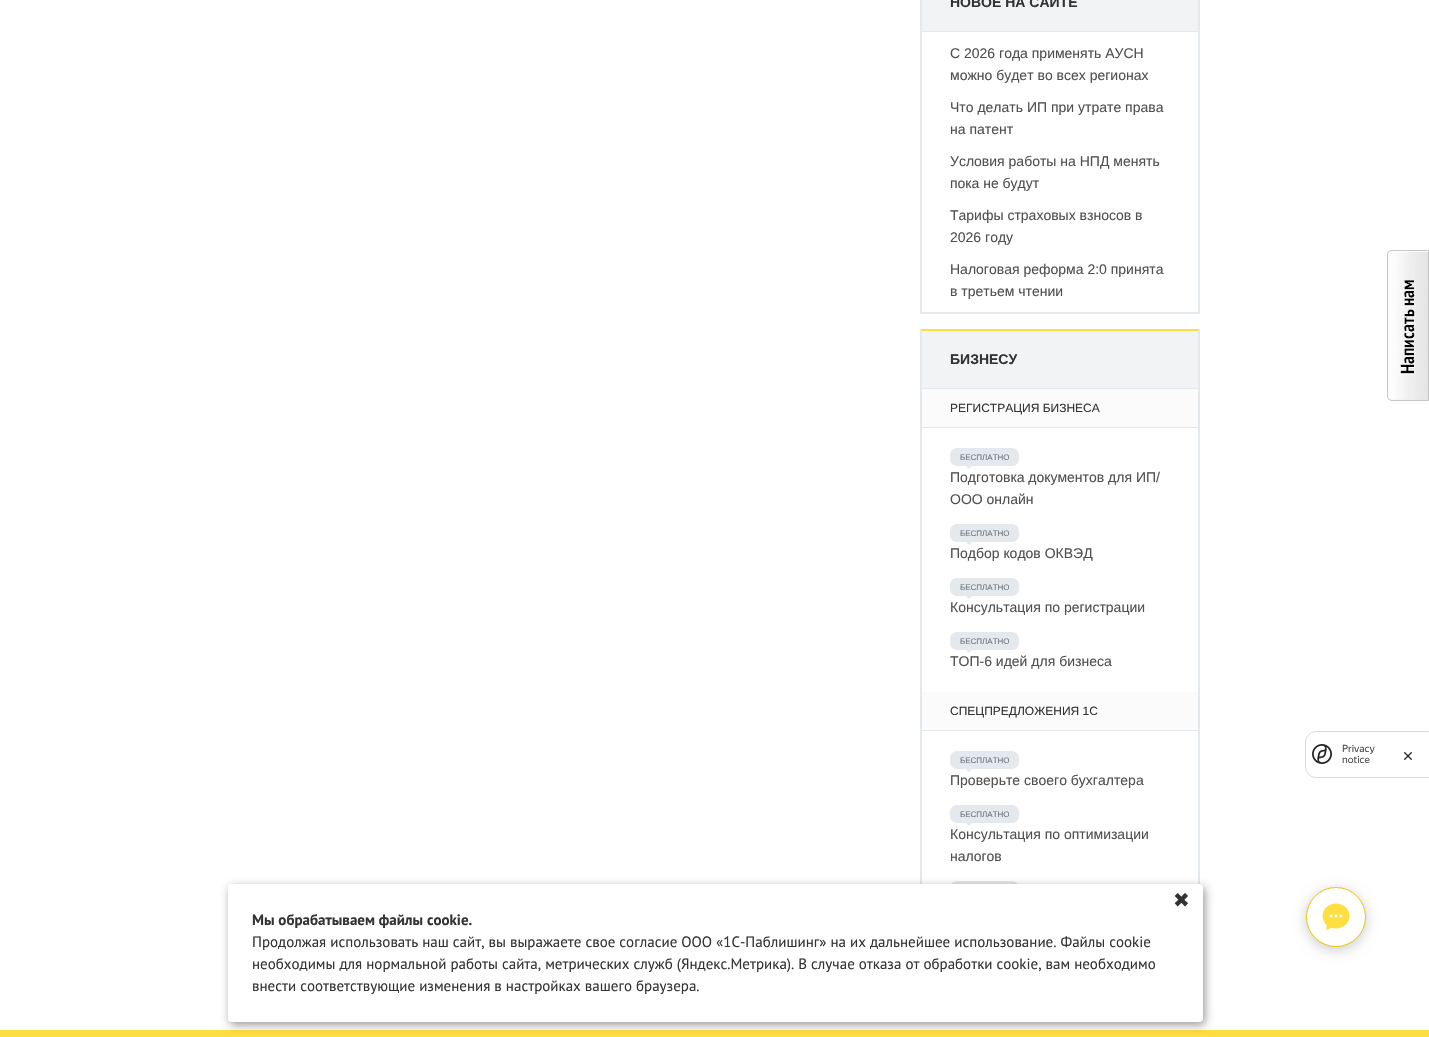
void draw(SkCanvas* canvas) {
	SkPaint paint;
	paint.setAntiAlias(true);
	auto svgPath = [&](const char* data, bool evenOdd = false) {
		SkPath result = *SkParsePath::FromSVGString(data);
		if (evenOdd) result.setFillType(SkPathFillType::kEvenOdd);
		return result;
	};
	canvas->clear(0xffffffff);
	paint.setColor(0xffe3e9ed);
	canvas->drawPath(svgPath("M1200-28V314L1198 312V-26Z"), paint);
	canvas->drawRect(SkRect::MakeXYWH(920, 312, 280, 2), paint);
	canvas->drawPath(svgPath("M920 314V-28L922-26V312Z"), paint);
	paint.setColor(0xfff1f3f4);
	canvas->drawRect(SkRect::MakeXYWH(922, 0, 276, 31), paint);
	paint.setColor(0xffe3e9ed);
	canvas->drawRect(SkRect::MakeXYWH(922, 31, 276, 1), paint);
	SkFont f1(fontMgr->matchFamilyStyle("Liberation Sans", SkFontStyle::Bold()), 14);
	f1.setSubpixel(true);
	paint.setColor(0xff333333);
	canvas->drawString("НОВОЕ НА САЙТЕ", 950, 7, f1, paint);
	SkFont f2(fontMgr->matchFamilyStyle("Liberation Sans", SkFontStyle::Normal()), 14);
	f2.setSubpixel(true);
	paint.setColor(0xff505050);
	canvas->drawString("С 2026 года применять АУСН", 950, 58, f2, paint);
	canvas->drawString("можно будет во всех регионах", 950, 80, f2, paint);
	canvas->drawString("Что делать ИП при утрате права", 950, 112, f2, paint);
	canvas->drawString("на патент", 950, 134, f2, paint);
	canvas->drawString("Условия работы на НПД менять", 950, 166, f2, paint);
	canvas->drawString("пока не будут", 950, 188, f2, paint);
	canvas->drawString("Тарифы страховых взносов в", 950, 220, f2, paint);
	canvas->drawString("2026 году", 950, 242, f2, paint);
	canvas->drawString("Налоговая реформа 2:0 принята", 950, 274, f2, paint);
	canvas->drawString("в третьем чтении", 950, 296, f2, paint);
	paint.setColor(0xffffde41);
	canvas->drawPath(svgPath("M920 329H1200L1198 331H922Z"), paint);
	paint.setColor(0xffe3e9ed);
	canvas->drawPath(svgPath("M1200 329V965L1198 963V331Z"), paint);
	canvas->drawPath(svgPath("M920 965V329L922 331V963Z"), paint);
	paint.setColor(0xfff1f3f4);
	canvas->drawRect(SkRect::MakeXYWH(922, 331, 276, 57), paint);
	paint.setColor(0xffe3e9ed);
	canvas->drawRect(SkRect::MakeXYWH(922, 388, 276, 1), paint);
	paint.setColor(0xff333333);
	canvas->drawString("БИЗНЕСУ", 950, 364, f1, paint);
	paint.setColor(0xfffbfbfb);
	canvas->drawRect(SkRect::MakeXYWH(922, 389, 276, 38), paint);
	paint.setColor(0xffe3e9ed);
	canvas->drawRect(SkRect::MakeXYWH(922, 427, 276, 1), paint);
	SkFont f3(fontMgr->matchFamilyStyle("Liberation Sans", SkFontStyle::Normal()), 12);
	f3.setSubpixel(true);
	paint.setColor(0xff333333);
	canvas->drawString("РЕГИСТРАЦИЯ БИЗНЕСА", 950, 412, f3, paint);
	paint.setColor(0xffe3e9ed);
	canvas->drawRoundRect(SkRect::MakeXYWH(950, 448, 69, 18), 7, 7, paint);
	SkFont f4(fontMgr->matchFamilyStyle("Liberation Sans", SkFontStyle::Normal()), 8);
	f4.setSubpixel(true);
	paint.setColor(0xff70747f);
	canvas->drawString("БЕСПЛАТНО", 960, 460, f4, paint);
	paint.setColor(0xffe3e9ed);
	canvas->drawPath(svgPath("M966 466H972L969 469Z"), paint);
	paint.setColor(0xff505050);
	canvas->drawString("Подготовка документов для ИП/", 950, 482, f2, paint);
	canvas->drawString("ООО онлайн", 950, 504, f2, paint);
	paint.setColor(0xffe3e9ed);
	canvas->drawRoundRect(SkRect::MakeXYWH(950, 524, 69, 18), 7, 7, paint);
	paint.setColor(0xff70747f);
	canvas->drawString("БЕСПЛАТНО", 960, 536, f4, paint);
	paint.setColor(0xffe3e9ed);
	canvas->drawPath(svgPath("M966 542H972L969 545Z"), paint);
	paint.setColor(0xff505050);
	canvas->drawString("Подбор кодов ОКВЭД", 950, 558, f2, paint);
	paint.setColor(0xffe3e9ed);
	canvas->drawRoundRect(SkRect::MakeXYWH(950, 578, 69, 18), 7, 7, paint);
	paint.setColor(0xff70747f);
	canvas->drawString("БЕСПЛАТНО", 960, 590, f4, paint);
	paint.setColor(0xffe3e9ed);
	canvas->drawPath(svgPath("M966 596H972L969 599Z"), paint);
	paint.setColor(0xff505050);
	canvas->drawString("Консультация по регистрации", 950, 612, f2, paint);
	paint.setColor(0xffe3e9ed);
	canvas->drawRoundRect(SkRect::MakeXYWH(950, 632, 69, 18), 7, 7, paint);
	paint.setColor(0xff70747f);
	canvas->drawString("БЕСПЛАТНО", 960, 644, f4, paint);
	paint.setColor(0xffe3e9ed);
	canvas->drawPath(svgPath("M966 650H972L969 653Z"), paint);
	paint.setColor(0xff505050);
	canvas->drawString("ТОП-6 идей для бизнеса", 950, 666, f2, paint);
	paint.setColor(0xfffbfbfb);
	canvas->drawRect(SkRect::MakeXYWH(922, 692, 276, 38), paint);
	paint.setColor(0xffe3e9ed);
	canvas->drawRect(SkRect::MakeXYWH(922, 730, 276, 1), paint);
	paint.setColor(0xff333333);
	canvas->drawString("СПЕЦПРЕДЛОЖЕНИЯ 1С", 950, 715, f3, paint);
	paint.setColor(0xffe3e9ed);
	canvas->drawRoundRect(SkRect::MakeXYWH(950, 751, 69, 18), 7, 7, paint);
	paint.setColor(0xff70747f);
	canvas->drawString("БЕСПЛАТНО", 960, 763, f4, paint);
	paint.setColor(0xffe3e9ed);
	canvas->drawPath(svgPath("M966 769H972L969 772Z"), paint);
	paint.setColor(0xff505050);
	canvas->drawString("Проверьте своего бухгалтера", 950, 785, f2, paint);
	paint.setColor(0xffe3e9ed);
	canvas->drawRoundRect(SkRect::MakeXYWH(950, 805, 69, 18), 7, 7, paint);
	paint.setColor(0xff70747f);
	canvas->drawString("БЕСПЛАТНО", 960, 817, f4, paint);
	paint.setColor(0xffe3e9ed);
	canvas->drawPath(svgPath("M966 823H972L969 826Z"), paint);
	paint.setColor(0xff505050);
	canvas->drawString("Консультация по оптимизации", 950, 839, f2, paint);
	canvas->drawString("налогов", 950, 861, f2, paint);
	paint.setColor(0xffe3e9ed);
	canvas->drawRoundRect(SkRect::MakeXYWH(950, 881, 69, 18), 7, 7, paint);
	canvas->drawImageRect(SkImages::DeferredFromEncodedData(SkData::MakeFromFileName("img1.png")), SkRect::MakeXYWH(1387, 250, 42, 151), SkSamplingOptions());
	paint.setStroke(true);
	paint.setStrokeWidth(1);
	paint.setColor(0xffd9d9d9);
	canvas->drawRoundRect(SkRect::MakeXYWH(1305.5, 731.5, 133, 46), 10.5, 10.5, paint);
	canvas->drawImageRect(SkImages::DeferredFromEncodedData(SkData::MakeFromFileName("img2.png")), SkRect::MakeXYWH(1312, 744, 20, 20), SkSamplingOptions());
	SkFont f5(fontMgr->matchFamilyStyle("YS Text", SkFontStyle::Normal()), 10);
	f5.setSubpixel(true);
	paint.setStroke(false);
	paint.setColor(0xff505050);
	canvas->drawString("Privacy", 1342, 752, f5, paint);
	canvas->drawString("notice", 1342, 763, f5, paint);
	canvas->drawImageRect(SkImages::DeferredFromEncodedData(SkData::MakeFromFileName("img3.png")), SkRect::MakeXYWH(1404, 752, 8, 8), SkSamplingOptions());
	paint.setColor(0xffffde41);
	canvas->drawRect(SkRect::MakeXYWH(0, 1030, 1429, 7), paint);
	paint.setColor(0x66000000);
	paint.setMaskFilter(SkMaskFilter::MakeBlur(kNormal_SkBlurStyle, 5));
	canvas->drawRoundRect(SkRect::MakeXYWH(230, 887, 975, 138), 4, 4, paint);
	paint.setMaskFilter(nullptr);
	paint.setColor(0xffffffff);
	canvas->drawRoundRect(SkRect::MakeXYWH(228, 884, 975, 138), 4, 4, paint);
	SkFont f6(fontMgr->matchFamilyStyle("DejaVu Sans", SkFontStyle::Normal()), 20);
	f6.setSubpixel(true);
	paint.setColor(0xff333333);
	canvas->drawString("✖", 1173, 907, f6, paint);
	SkFont f7(fontMgr->matchFamilyStyle("PT Sans", SkFontStyle::Bold()), 15);
	f7.setSubpixel(true);
	canvas->drawString("Мы обрабатываем файлы cookie.", 252, 925, f7, paint);
	SkFont f8(fontMgr->matchFamilyStyle("PT Sans", SkFontStyle::Normal()), 15);
	f8.setSubpixel(true);
	canvas->drawString("Продолжая использовать наш сайт, вы выражаете свое согласие ООО «1С-Паблишинг» на их дальнейшее использование. Файлы cookie", 252, 947, f8, paint);
	canvas->drawString("необходимы для нормальной работы сайта, метрических служб (Яндекс.Метрика). В случае отказа от обработки cookie, вам необходимо", 252, 969, f8, paint);
	canvas->drawString("внести соответствующие изменения в настройках вашего браузера.", 252, 991, f8, paint);
	paint.setColor(0x33000000);
	paint.setMaskFilter(SkMaskFilter::MakeBlur(kNormal_SkBlurStyle, 6.5));
	canvas->drawRoundRect(SkRect::MakeXYWH(1306, 890, 60, 60), 30, 30, paint);
	paint.setMaskFilter(nullptr);
	paint.setColor(0xffffffff);
	canvas->drawCircle(1336, 917, 29.5, paint);
	paint.setStroke(true);
	paint.setColor(0xffe7c706);
	canvas->drawCircle(1336, 917, 29.5, paint);
	canvas->drawImageRect(SkImages::DeferredFromEncodedData(SkData::MakeFromFileName("img4.png")), SkRect::MakeXYWH(1322, 903, 28, 28), SkSamplingOptions());
}
